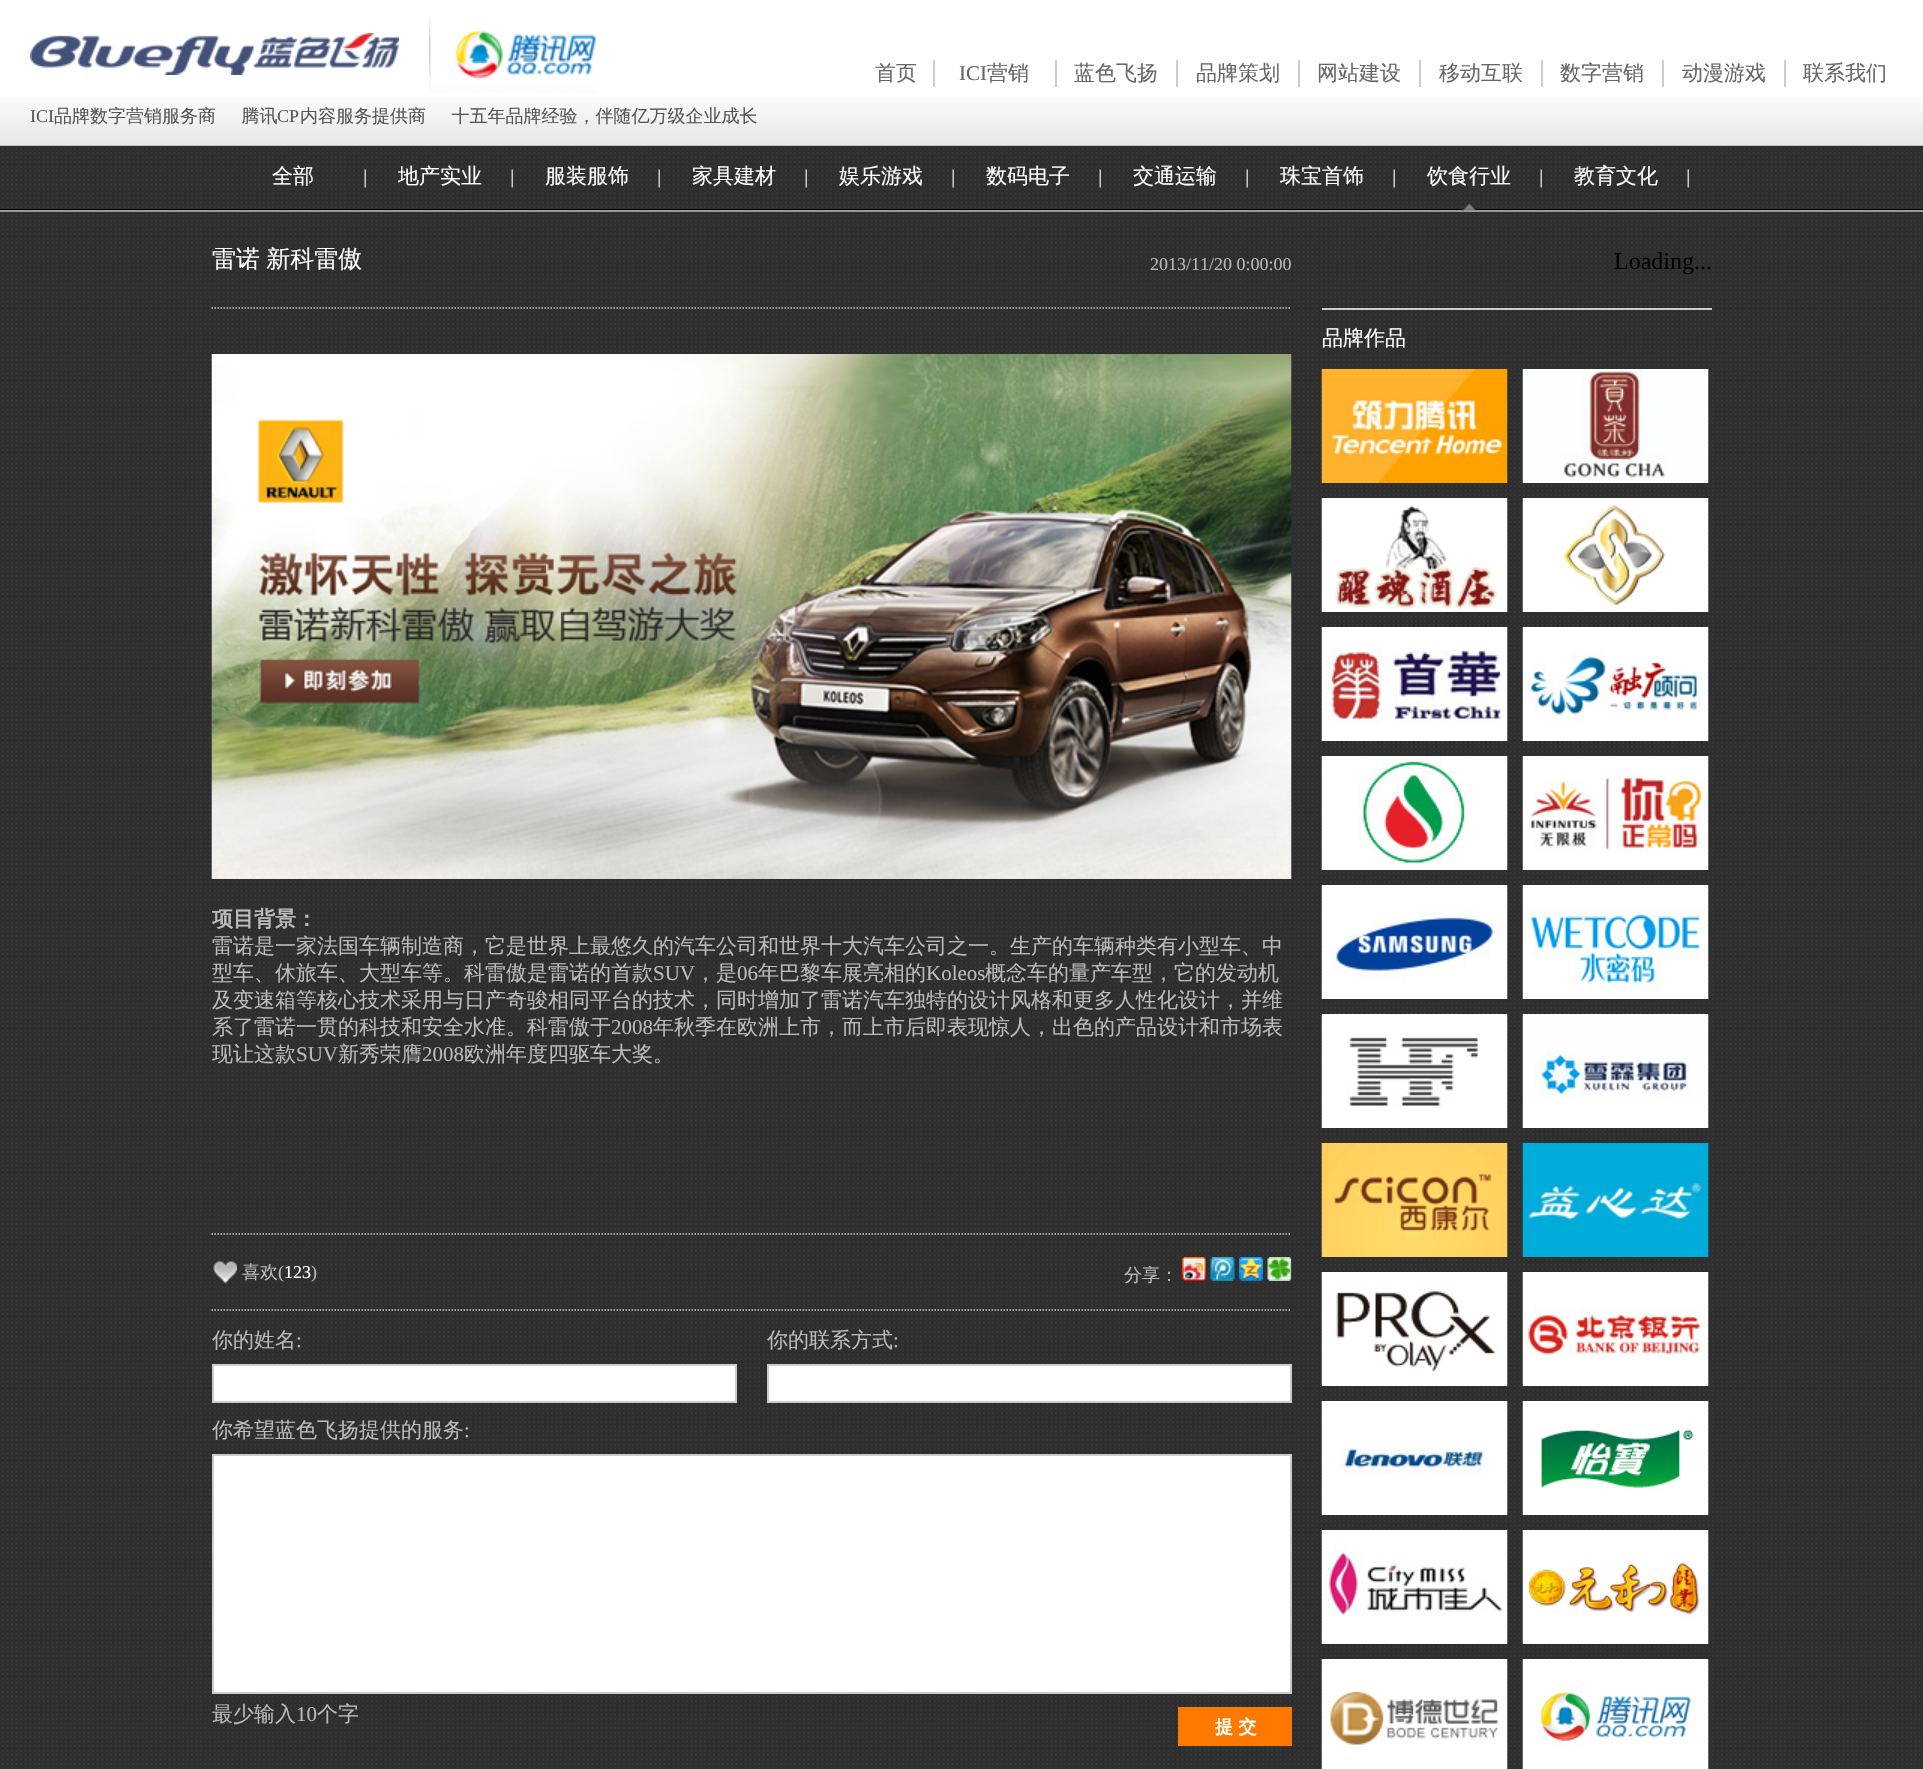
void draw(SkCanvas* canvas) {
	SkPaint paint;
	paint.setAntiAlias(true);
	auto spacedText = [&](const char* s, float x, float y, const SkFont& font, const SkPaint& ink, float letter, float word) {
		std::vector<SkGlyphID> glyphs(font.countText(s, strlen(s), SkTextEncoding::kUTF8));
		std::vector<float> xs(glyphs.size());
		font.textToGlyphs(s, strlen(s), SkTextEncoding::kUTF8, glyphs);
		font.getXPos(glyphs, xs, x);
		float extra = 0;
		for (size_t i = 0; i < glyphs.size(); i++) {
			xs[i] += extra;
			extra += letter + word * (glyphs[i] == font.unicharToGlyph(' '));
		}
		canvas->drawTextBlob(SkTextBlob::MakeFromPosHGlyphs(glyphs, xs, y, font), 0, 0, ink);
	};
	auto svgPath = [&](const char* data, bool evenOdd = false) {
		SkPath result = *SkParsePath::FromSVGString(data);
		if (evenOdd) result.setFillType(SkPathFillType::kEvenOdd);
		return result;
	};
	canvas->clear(0xffffffff);
	canvas->drawImageRect(SkImages::DeferredFromEncodedData(SkData::MakeFromFileName("img4.png")), SkRect::MakeXYWH(0, 145, 1923, 1624), SkSamplingOptions());
	canvas->drawImageRect(SkImages::DeferredFromEncodedData(SkData::MakeFromFileName("img1.png")), SkRect::MakeXYWH(0, 98, 1923, 48), SkSamplingOptions());
	paint.setColor(0xffcccccc);
	canvas->drawRect(SkRect::MakeXYWH(933, 60, 2, 27), paint);
	SkFont f1(fontMgr->matchFamilyStyle("WenQuanYi Zen Hei", SkFontStyle(500, SkFontStyle::kNormal_Width, SkFontStyle::kUpright_Slant)), 21);
	f1.setSubpixel(true);
	paint.setColor(0xff666666);
	canvas->drawString("首页", 875, 80, f1, paint);
	paint.setColor(0xffcccccc);
	canvas->drawRect(SkRect::MakeXYWH(1055, 60, 2, 27), paint);
	SkFont f2(fontMgr->matchFamilyStyle("Liberation Serif", SkFontStyle::Normal()), 21);
	f2.setSubpixel(true);
	paint.setColor(0xff666666);
	canvas->drawString("ICI", 959, 80, f2, paint);
	canvas->drawString("营销", 987, 80, f1, paint);
	paint.setColor(0xffcccccc);
	canvas->drawRect(SkRect::MakeXYWH(1176, 60, 2, 27), paint);
	paint.setColor(0xff666666);
	canvas->drawString("蓝色飞扬", 1074, 80, f1, paint);
	paint.setColor(0xffcccccc);
	canvas->drawRect(SkRect::MakeXYWH(1298, 60, 2, 27), paint);
	paint.setColor(0xff666666);
	canvas->drawString("品牌策划", 1196, 80, f1, paint);
	paint.setColor(0xffcccccc);
	canvas->drawRect(SkRect::MakeXYWH(1419, 60, 2, 27), paint);
	paint.setColor(0xff666666);
	canvas->drawString("网站建设", 1317, 80, f1, paint);
	paint.setColor(0xffcccccc);
	canvas->drawRect(SkRect::MakeXYWH(1541, 60, 2, 27), paint);
	paint.setColor(0xff666666);
	canvas->drawString("移动互联", 1439, 80, f1, paint);
	paint.setColor(0xffcccccc);
	canvas->drawRect(SkRect::MakeXYWH(1662, 60, 2, 27), paint);
	paint.setColor(0xff666666);
	canvas->drawString("数字营销", 1560, 80, f1, paint);
	paint.setColor(0xffcccccc);
	canvas->drawRect(SkRect::MakeXYWH(1784, 60, 2, 27), paint);
	paint.setColor(0xff666666);
	canvas->drawString("动漫游戏", 1682, 80, f1, paint);
	canvas->drawString("联系我们", 1803, 80, f1, paint);
	canvas->drawImageRect(SkImages::DeferredFromEncodedData(SkData::MakeFromFileName("img2.png")), SkRect::MakeXYWH(30, 33, 369, 42), SkSamplingOptions());
	canvas->drawImageRect(SkImages::DeferredFromEncodedData(SkData::MakeFromFileName("img3.png")), SkRect::MakeXYWH(429, 15, 167, 78), SkSamplingOptions());
	SkFont f3(fontMgr->matchFamilyStyle("Liberation Serif", SkFontStyle::Normal()), 18);
	f3.setSubpixel(true);
	paint.setColor(0xff555555);
	canvas->drawString("ICI", 30, 122, f3, paint);
	SkFont f4(fontMgr->matchFamilyStyle("WenQuanYi Zen Hei", SkFontStyle(500, SkFontStyle::kNormal_Width, SkFontStyle::kUpright_Slant)), 18);
	f4.setSubpixel(true);
	spacedText("品牌数字营销服务商 腾讯", 54, 122, f4, paint, 0, 20);
	canvas->drawString("CP", 277, 122, f3, paint);
	spacedText("内容服务提供商 十五年品牌经验，伴随亿万级企业成长", 300, 122, f4, paint, 0, 20);
	paint.setColor(0xff000000);
	canvas->drawRect(SkRect::MakeXYWH(0, 209, 1923, 1), paint);
	paint.setColor(0xff999999);
	canvas->drawRect(SkRect::MakeXYWH(0, 210, 1923, 2), paint);
	canvas->drawImageRect(SkImages::DeferredFromEncodedData(SkData::MakeFromFileName("img5.png")), SkRect::MakeXYWH(364, 169, 2, 19), SkSamplingOptions());
	paint.setColor(0xffffffff);
	canvas->drawString("全部", 272, 183, f1, paint);
	canvas->drawImageRect(SkImages::DeferredFromEncodedData(SkData::MakeFromFileName("img6.png")), SkRect::MakeXYWH(511, 169, 2, 19), SkSamplingOptions());
	canvas->drawString("地产实业", 398, 183, f1, paint);
	canvas->drawImageRect(SkImages::DeferredFromEncodedData(SkData::MakeFromFileName("img5.png")), SkRect::MakeXYWH(658, 169, 2, 19), SkSamplingOptions());
	canvas->drawString("服装服饰", 545, 183, f1, paint);
	canvas->drawImageRect(SkImages::DeferredFromEncodedData(SkData::MakeFromFileName("img5.png")), SkRect::MakeXYWH(805, 169, 2, 19), SkSamplingOptions());
	canvas->drawString("家具建材", 692, 183, f1, paint);
	canvas->drawImageRect(SkImages::DeferredFromEncodedData(SkData::MakeFromFileName("img6.png")), SkRect::MakeXYWH(952, 169, 2, 19), SkSamplingOptions());
	canvas->drawString("娱乐游戏", 839, 183, f1, paint);
	canvas->drawImageRect(SkImages::DeferredFromEncodedData(SkData::MakeFromFileName("img5.png")), SkRect::MakeXYWH(1099, 169, 2, 19), SkSamplingOptions());
	canvas->drawString("数码电子", 986, 183, f1, paint);
	canvas->drawImageRect(SkImages::DeferredFromEncodedData(SkData::MakeFromFileName("img5.png")), SkRect::MakeXYWH(1246, 169, 2, 19), SkSamplingOptions());
	canvas->drawString("交通运输", 1133, 183, f1, paint);
	canvas->drawImageRect(SkImages::DeferredFromEncodedData(SkData::MakeFromFileName("img6.png")), SkRect::MakeXYWH(1393, 169, 2, 19), SkSamplingOptions());
	canvas->drawString("珠宝首饰", 1280, 183, f1, paint);
	canvas->drawImageRect(SkImages::DeferredFromEncodedData(SkData::MakeFromFileName("img5.png")), SkRect::MakeXYWH(1540, 169, 2, 19), SkSamplingOptions());
	canvas->drawImageRect(SkImages::DeferredFromEncodedData(SkData::MakeFromFileName("img7.png")), SkRect::MakeXYWH(1462, 204, 14, 7), SkSamplingOptions());
	canvas->drawString("饮食行业", 1427, 183, f1, paint);
	canvas->drawImageRect(SkImages::DeferredFromEncodedData(SkData::MakeFromFileName("img5.png")), SkRect::MakeXYWH(1687, 169, 2, 19), SkSamplingOptions());
	canvas->drawString("教育文化", 1574, 183, f1, paint);
	paint.setStroke(true);
	paint.setStrokeWidth(1.5);
	paint.setColor(0xffcccccc);
	paint.setPathEffect(SkDashPathEffect::Make({{1.5f, 1.5f}}, 0));
	canvas->drawPath(svgPath("M211.5 308H1291.5"), paint);
	paint.setPathEffect(nullptr);
	SkFont f5(fontMgr->matchFamilyStyle("WenQuanYi Zen Hei", SkFontStyle(500, SkFontStyle::kNormal_Width, SkFontStyle::kUpright_Slant)), 24);
	f5.setSubpixel(true);
	paint.setStroke(false);
	paint.setColor(0xffffffff);
	spacedText("雷诺 新科雷傲", 212, 267, f5, paint, 0, -1);
	paint.setColor(0xffbbbbbb);
	canvas->drawString("2013/11/20 0:00:00", 1150, 270, f3, paint);
	paint.setStroke(true);
	paint.setColor(0xffcccccc);
	paint.setPathEffect(SkDashPathEffect::Make({{1.5f, 1.5f}}, 0));
	canvas->drawPath(svgPath("M211.5 1234H1291.5"), paint);
	paint.setPathEffect(nullptr);
	canvas->drawImageRect(SkImages::DeferredFromEncodedData(SkData::MakeFromFileName("img8.png")), SkRect::MakeXYWH(211, 354, 1081, 525), SkSamplingOptions());
	canvas->save();
	canvas->clipRect(SkRect::MakeXYWH(212, 324, 1080, 909));
	SkFont f6(fontMgr->matchFamilyStyle("WenQuanYi Zen Hei", SkFontStyle::Bold()), 21);
	f6.setSubpixel(true);
	paint.setStroke(false);
	paint.setColor(0xffbbbbbb);
	canvas->drawString("项目背景：", 212, 926, f6, paint);
	canvas->restore();
	canvas->drawString("雷诺是一家法国车辆制造商，它是世界上最悠久的汽车公司和世界十大汽车公司之一。生产的车辆种类有小型车、中", 212, 953, f1, paint);
	canvas->drawString("型车、休旅车、大型车等。科雷傲是雷诺的首款", 212, 980, f1, paint);
	canvas->drawString("SUV", 653, 980, f2, paint);
	canvas->drawString("，是", 695, 980, f1, paint);
	canvas->drawString("06", 737, 980, f2, paint);
	canvas->drawString("年巴黎车展亮相的", 758, 980, f1, paint);
	canvas->drawString("Koleos", 926, 980, f2, paint);
	canvas->drawString("概念车的量产车型，它的发动机", 985, 980, f1, paint);
	canvas->drawString("及变速箱等核心技术采用与日产奇骏相同平台的技术，同时增加了雷诺汽车独特的设计风格和更多人性化设计，并维", 212, 1007, f1, paint);
	canvas->drawString("系了雷诺一贯的科技和安全水准。科雷傲于", 212, 1034, f1, paint);
	canvas->drawString("2008", 611, 1034, f2, paint);
	canvas->drawString("年秋季在欧洲上市，而上市后即表现惊人，出色的产品设计和市场表", 653, 1034, f1, paint);
	canvas->save();
	canvas->clipRect(SkRect::MakeXYWH(212, 324, 1080, 909));
	canvas->drawString("现让这款", 212, 1061, f1, paint);
	canvas->restore();
	canvas->drawString("SUV", 296, 1061, f2, paint);
	canvas->drawString("新秀荣膺", 338, 1061, f1, paint);
	canvas->drawString("2008", 422, 1061, f2, paint);
	canvas->drawString("欧洲年度四驱车大奖。", 464, 1061, f1, paint);
	canvas->drawImageRect(SkImages::DeferredFromEncodedData(SkData::MakeFromFileName("img9.png")), SkRect::MakeXYWH(213, 1261, 24, 23), SkSamplingOptions());
	canvas->drawString("喜欢", 242, 1278, f4, paint);
	canvas->drawString("(", 278, 1278, f3, paint);
	paint.setColor(0xffffffff);
	canvas->drawString("123", 284, 1278, f3, paint);
	paint.setColor(0xffbbbbbb);
	canvas->drawString(")", 311, 1278, f3, paint);
	canvas->drawString("分享：", 1124, 1281, f4, paint);
	canvas->drawImageRect(SkImages::DeferredFromEncodedData(SkData::MakeFromFileName("img10.png")), SkRect::MakeXYWH(1182, 1257, 24, 24), SkSamplingOptions());
	canvas->drawImageRect(SkImages::DeferredFromEncodedData(SkData::MakeFromFileName("img11.png")), SkRect::MakeXYWH(1210, 1257, 25, 24), SkSamplingOptions());
	canvas->drawImageRect(SkImages::DeferredFromEncodedData(SkData::MakeFromFileName("img12.png")), SkRect::MakeXYWH(1239, 1257, 24, 24), SkSamplingOptions());
	canvas->drawImageRect(SkImages::DeferredFromEncodedData(SkData::MakeFromFileName("img13.png")), SkRect::MakeXYWH(1267, 1257, 25, 24), SkSamplingOptions());
	paint.setStroke(true);
	paint.setColor(0xffcccccc);
	paint.setPathEffect(SkDashPathEffect::Make({{1.5f, 1.5f}}, 0));
	canvas->drawPath(svgPath("M211.5 1310H1291.5"), paint);
	paint.setPathEffect(nullptr);
	paint.setStroke(false);
	paint.setColor(0xffbbbbbb);
	canvas->drawString("你的姓名", 212, 1347, f1, paint);
	canvas->drawString(":", 296, 1347, f2, paint);
	paint.setColor(0xffffffff);
	canvas->drawRect(SkRect::MakeXYWH(213, 1365, 523, 37), paint);
	paint.setStroke(true);
	paint.setStrokeWidth(2);
	paint.setColor(0xffcccccc);
	canvas->drawRect(SkRect::MakeXYWH(213, 1365, 523, 37), paint);
	paint.setStroke(false);
	paint.setColor(0xffbbbbbb);
	canvas->drawString("你的联系方式", 767, 1347, f1, paint);
	canvas->drawString(":", 893, 1347, f2, paint);
	paint.setColor(0xffffffff);
	canvas->drawRect(SkRect::MakeXYWH(768, 1365, 523, 37), paint);
	paint.setStroke(true);
	paint.setColor(0xffcccccc);
	canvas->drawRect(SkRect::MakeXYWH(768, 1365, 523, 37), paint);
	paint.setStroke(false);
	paint.setColor(0xffbbbbbb);
	canvas->drawString("你希望蓝色飞扬提供的服务", 212, 1437, f1, paint);
	canvas->drawString(":", 464, 1437, f2, paint);
	paint.setColor(0xffffffff);
	canvas->drawRect(SkRect::MakeXYWH(213, 1455, 1078, 238), paint);
	paint.setStroke(true);
	paint.setColor(0xffcccccc);
	canvas->drawRect(SkRect::MakeXYWH(213, 1455, 1078, 238), paint);
	paint.setStroke(false);
	paint.setColor(0xffbbbbbb);
	canvas->drawString("最少输入", 212, 1721, f1, paint);
	canvas->drawString("10", 296, 1721, f2, paint);
	canvas->drawString("个字", 317, 1721, f1, paint);
	paint.setColor(0xffff7800);
	canvas->drawRect(SkRect::MakeXYWH(1178, 1707, 114, 39), paint);
	SkFont f7(fontMgr->matchFamilyStyle("WenQuanYi Zen Hei", SkFontStyle::Bold()), 18);
	f7.setSubpixel(true);
	paint.setColor(0xffffffff);
	canvas->drawString("提 交", 1215, 1733, f7, paint);
	paint.setColor(0xffcccccc);
	canvas->drawRect(SkRect::MakeXYWH(1322, 308, 390, 2), paint);
	SkFont f8(fontMgr->matchFamilyStyle("Liberation Serif", SkFontStyle::Normal()), 24);
	f8.setSubpixel(true);
	paint.setColor(0xff000000);
	canvas->drawString("Loading...", 1614, 269, f8, paint);
	paint.setColor(0xffffffff);
	canvas->drawString("品牌作品", 1322, 345, f1, paint);
	canvas->drawImageRect(SkImages::DeferredFromEncodedData(SkData::MakeFromFileName("img14.png")), SkRect::MakeXYWH(1321, 369, 187, 114), SkSamplingOptions());
	canvas->drawImageRect(SkImages::DeferredFromEncodedData(SkData::MakeFromFileName("img15.png")), SkRect::MakeXYWH(1522, 369, 187, 114), SkSamplingOptions());
	canvas->drawImageRect(SkImages::DeferredFromEncodedData(SkData::MakeFromFileName("img16.png")), SkRect::MakeXYWH(1321, 498, 187, 114), SkSamplingOptions());
	canvas->drawImageRect(SkImages::DeferredFromEncodedData(SkData::MakeFromFileName("img17.png")), SkRect::MakeXYWH(1522, 498, 187, 114), SkSamplingOptions());
	canvas->drawImageRect(SkImages::DeferredFromEncodedData(SkData::MakeFromFileName("img18.png")), SkRect::MakeXYWH(1321, 627, 187, 114), SkSamplingOptions());
	canvas->drawImageRect(SkImages::DeferredFromEncodedData(SkData::MakeFromFileName("img19.png")), SkRect::MakeXYWH(1522, 627, 187, 114), SkSamplingOptions());
	canvas->drawImageRect(SkImages::DeferredFromEncodedData(SkData::MakeFromFileName("img20.png")), SkRect::MakeXYWH(1321, 756, 187, 114), SkSamplingOptions());
	canvas->drawImageRect(SkImages::DeferredFromEncodedData(SkData::MakeFromFileName("img21.png")), SkRect::MakeXYWH(1522, 756, 187, 114), SkSamplingOptions());
	canvas->drawImageRect(SkImages::DeferredFromEncodedData(SkData::MakeFromFileName("img22.png")), SkRect::MakeXYWH(1321, 885, 187, 114), SkSamplingOptions());
	canvas->drawImageRect(SkImages::DeferredFromEncodedData(SkData::MakeFromFileName("img23.png")), SkRect::MakeXYWH(1522, 885, 187, 114), SkSamplingOptions());
	canvas->drawImageRect(SkImages::DeferredFromEncodedData(SkData::MakeFromFileName("img24.png")), SkRect::MakeXYWH(1321, 1014, 187, 114), SkSamplingOptions());
	canvas->drawImageRect(SkImages::DeferredFromEncodedData(SkData::MakeFromFileName("img25.png")), SkRect::MakeXYWH(1522, 1014, 187, 114), SkSamplingOptions());
	canvas->drawImageRect(SkImages::DeferredFromEncodedData(SkData::MakeFromFileName("img26.png")), SkRect::MakeXYWH(1321, 1143, 187, 114), SkSamplingOptions());
	canvas->drawImageRect(SkImages::DeferredFromEncodedData(SkData::MakeFromFileName("img27.png")), SkRect::MakeXYWH(1522, 1143, 187, 114), SkSamplingOptions());
	canvas->drawImageRect(SkImages::DeferredFromEncodedData(SkData::MakeFromFileName("img28.png")), SkRect::MakeXYWH(1321, 1272, 187, 114), SkSamplingOptions());
	canvas->drawImageRect(SkImages::DeferredFromEncodedData(SkData::MakeFromFileName("img29.png")), SkRect::MakeXYWH(1522, 1272, 187, 114), SkSamplingOptions());
	canvas->drawImageRect(SkImages::DeferredFromEncodedData(SkData::MakeFromFileName("img30.png")), SkRect::MakeXYWH(1321, 1401, 187, 114), SkSamplingOptions());
	canvas->drawImageRect(SkImages::DeferredFromEncodedData(SkData::MakeFromFileName("img31.png")), SkRect::MakeXYWH(1522, 1401, 187, 114), SkSamplingOptions());
	canvas->drawImageRect(SkImages::DeferredFromEncodedData(SkData::MakeFromFileName("img32.png")), SkRect::MakeXYWH(1321, 1530, 187, 114), SkSamplingOptions());
	canvas->drawImageRect(SkImages::DeferredFromEncodedData(SkData::MakeFromFileName("img33.png")), SkRect::MakeXYWH(1522, 1530, 187, 114), SkSamplingOptions());
	canvas->drawImageRect(SkImages::DeferredFromEncodedData(SkData::MakeFromFileName("img34.png")), SkRect::MakeXYWH(1321, 1659, 187, 110), SkSamplingOptions());
	canvas->drawImageRect(SkImages::DeferredFromEncodedData(SkData::MakeFromFileName("img35.png")), SkRect::MakeXYWH(1522, 1659, 187, 110), SkSamplingOptions());
}
